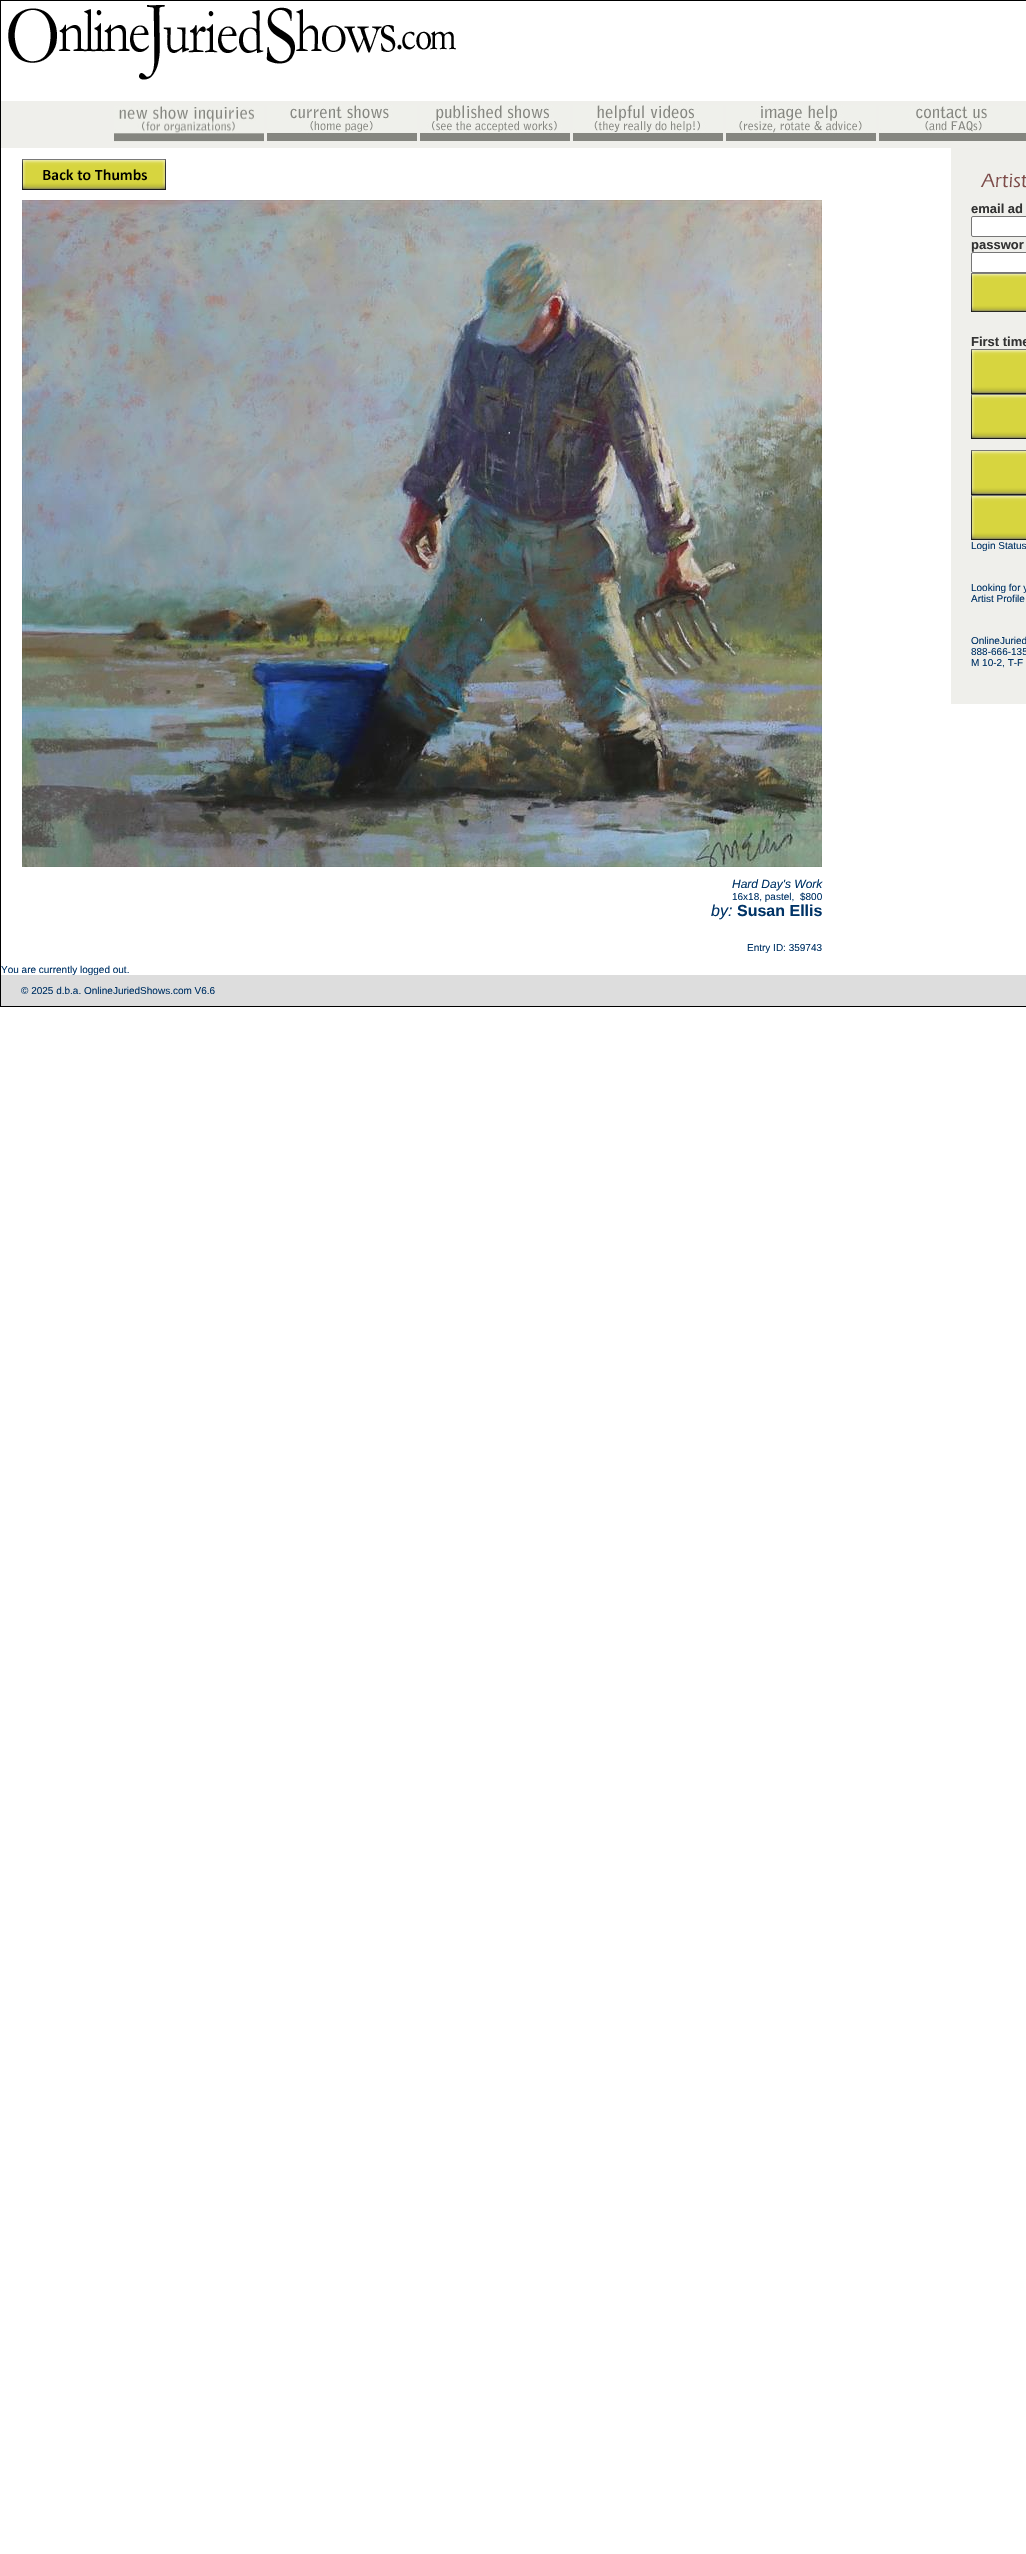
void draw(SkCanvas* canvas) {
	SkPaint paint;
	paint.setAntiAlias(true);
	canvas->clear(0xffffffff);
	paint.setStroke(true);
	paint.setStrokeWidth(1);
	paint.setColor(0xff000000);
	canvas->drawRect(SkRect::MakeXYWH(0.5, 0.5, 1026, 1006), paint);
	canvas->drawImageRect(SkImages::DeferredFromEncodedData(SkData::MakeFromFileName("img1.png")), SkRect::MakeXYWH(8, 5, 448, 75), SkSamplingOptions());
	paint.setStroke(false);
	paint.setColor(0xffefefeb);
	canvas->drawRect(SkRect::MakeXYWH(1, 101, 1025, 47), paint);
	canvas->drawImageRect(SkImages::DeferredFromEncodedData(SkData::MakeFromFileName("img2.png")), SkRect::MakeXYWH(114, 106, 150, 36), SkSamplingOptions());
	canvas->drawImageRect(SkImages::DeferredFromEncodedData(SkData::MakeFromFileName("img3.png")), SkRect::MakeXYWH(267, 105, 150, 36), SkSamplingOptions());
	canvas->drawImageRect(SkImages::DeferredFromEncodedData(SkData::MakeFromFileName("img4.png")), SkRect::MakeXYWH(420, 105, 150, 36), SkSamplingOptions());
	canvas->drawImageRect(SkImages::DeferredFromEncodedData(SkData::MakeFromFileName("img5.png")), SkRect::MakeXYWH(573, 105, 150, 36), SkSamplingOptions());
	canvas->drawImageRect(SkImages::DeferredFromEncodedData(SkData::MakeFromFileName("img6.png")), SkRect::MakeXYWH(726, 105, 150, 36), SkSamplingOptions());
	canvas->drawImageRect(SkImages::DeferredFromEncodedData(SkData::MakeFromFileName("img7.png")), SkRect::MakeXYWH(879, 106, 147, 35), SkSamplingOptions());
	canvas->drawRect(SkRect::MakeXYWH(951, 148, 75, 556), paint);
	canvas->drawImageRect(SkImages::DeferredFromEncodedData(SkData::MakeFromFileName("img8.png")), SkRect::MakeXYWH(980, 173, 46, 15), SkSamplingOptions());
	SkFont f1(fontMgr->matchFamilyStyle("Liberation Sans", SkFontStyle::Bold()), 13);
	f1.setSubpixel(true);
	paint.setColor(0xff333333);
	canvas->drawString("email ad", 971, 213, f1, paint);
	paint.setColor(0xffffffff);
	canvas->drawRoundRect(SkRect::MakeXYWH(971.5, 216.5, 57, 20), 1.5, 1.5, paint);
	paint.setStroke(true);
	paint.setColor(0xff767676);
	canvas->drawRoundRect(SkRect::MakeXYWH(971.5, 216.5, 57, 20), 1.5, 1.5, paint);
	paint.setStroke(false);
	paint.setColor(0xff333333);
	canvas->drawString("passwor", 971, 249, f1, paint);
	paint.setColor(0xffffffff);
	canvas->drawRoundRect(SkRect::MakeXYWH(971.5, 252.5, 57, 20), 1.5, 1.5, paint);
	paint.setStroke(true);
	paint.setColor(0xff767676);
	canvas->drawRoundRect(SkRect::MakeXYWH(971.5, 252.5, 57, 20), 1.5, 1.5, paint);
	canvas->drawImageRect(SkImages::DeferredFromEncodedData(SkData::MakeFromFileName("img9.png")), SkRect::MakeXYWH(971, 273, 55, 39), SkSamplingOptions());
	paint.setStroke(false);
	paint.setColor(0xff333333);
	canvas->drawString("First time", 971, 346, f1, paint);
	canvas->drawImageRect(SkImages::DeferredFromEncodedData(SkData::MakeFromFileName("img10.png")), SkRect::MakeXYWH(971, 349, 55, 45), SkSamplingOptions());
	canvas->drawImageRect(SkImages::DeferredFromEncodedData(SkData::MakeFromFileName("img10.png")), SkRect::MakeXYWH(971, 394, 55, 45), SkSamplingOptions());
	canvas->drawImageRect(SkImages::DeferredFromEncodedData(SkData::MakeFromFileName("img10.png")), SkRect::MakeXYWH(971, 450, 55, 45), SkSamplingOptions());
	canvas->drawImageRect(SkImages::DeferredFromEncodedData(SkData::MakeFromFileName("img10.png")), SkRect::MakeXYWH(971, 495, 55, 45), SkSamplingOptions());
	SkFont f2(fontMgr->matchFamilyStyle("Liberation Sans", SkFontStyle::Normal()), 10);
	f2.setSubpixel(true);
	paint.setColor(0xff003366);
	canvas->drawString("Login Status", 971, 549, f2, paint);
	canvas->drawString("Looking for y", 971, 591, f2, paint);
	canvas->drawString("Artist Profile", 971, 602, f2, paint);
	canvas->drawString("OnlineJuried", 971, 644, f2, paint);
	canvas->drawString("888-666-135", 971, 655, f2, paint);
	canvas->drawString("M 10-2, T-F", 971, 666, f2, paint);
	canvas->drawImageRect(SkImages::DeferredFromEncodedData(SkData::MakeFromFileName("img11.png")), SkRect::MakeXYWH(22, 159, 144, 31), SkSamplingOptions());
	canvas->drawImageRect(SkImages::DeferredFromEncodedData(SkData::MakeFromFileName("img12.png")), SkRect::MakeXYWH(22, 200, 800, 667), SkSamplingOptions());
	SkFont f3(fontMgr->matchFamilyStyle("Liberation Sans", SkFontStyle::Italic()), 12);
	f3.setSubpixel(true);
	canvas->drawString("Hard Day's Work", 732, 888, f3, paint);
	canvas->drawString("16x18, pastel,", 732, 900, f2, paint);
	canvas->drawString("$800", 800, 900, f2, paint);
	SkFont f4(fontMgr->matchFamilyStyle("Liberation Sans", SkFontStyle::Italic()), 16);
	f4.setSubpixel(true);
	canvas->drawString("by:", 711, 916, f4, paint);
	SkFont f5(fontMgr->matchFamilyStyle("Liberation Sans", SkFontStyle::Bold()), 16);
	f5.setSubpixel(true);
	canvas->drawString("Susan Ellis", 737, 916, f5, paint);
	canvas->drawString("Entry ID: 359743", 747, 951, f2, paint);
	paint.setColor(0xffdddddd);
	canvas->drawRect(SkRect::MakeXYWH(1, 975, 1025, 31), paint);
	paint.setColor(0xff003366);
	canvas->drawString("You are currently logged out.", 1, 973, f2, paint);
	canvas->drawString("© 2025 d.b.a. OnlineJuriedShows.com V6.6", 21, 994, f2, paint);
}
